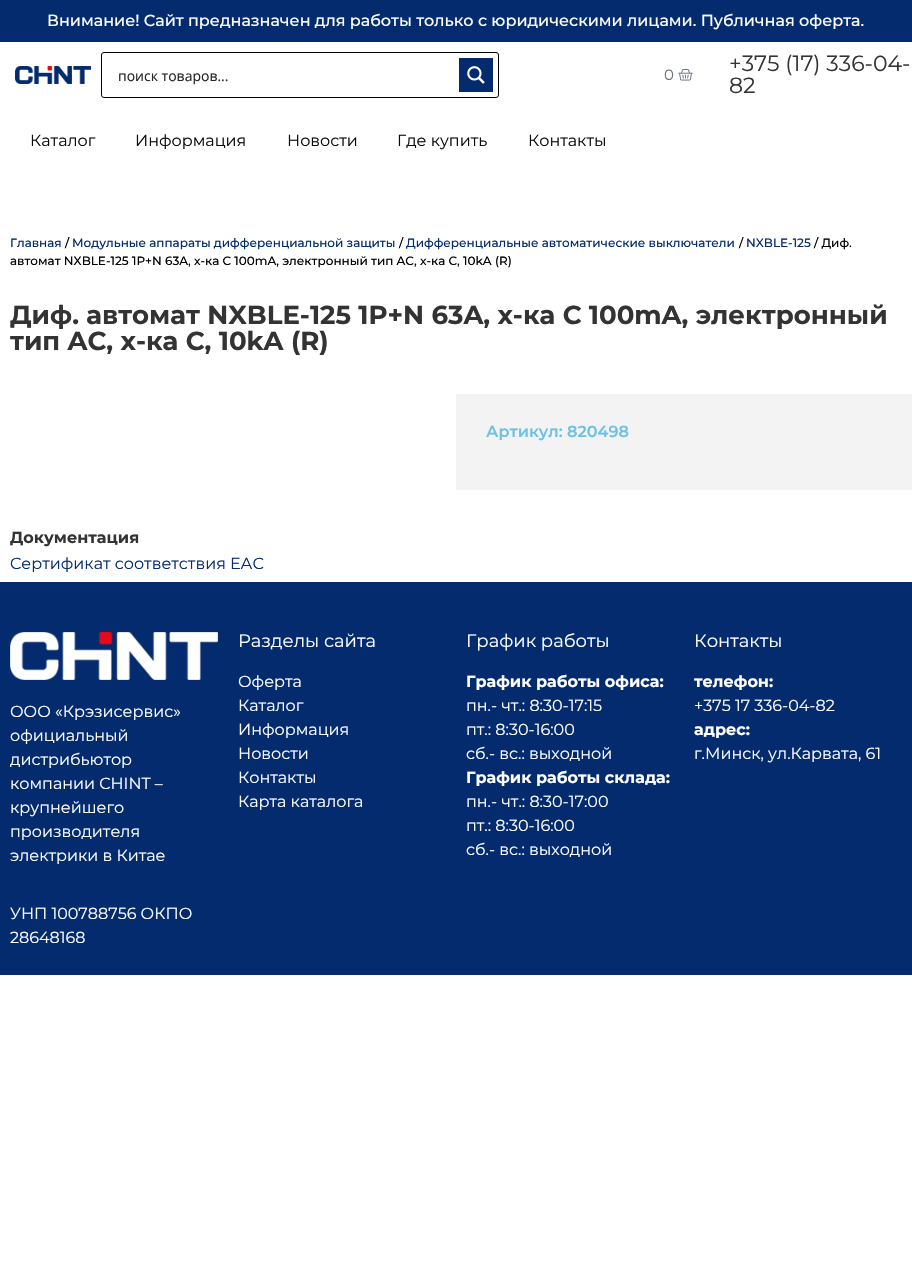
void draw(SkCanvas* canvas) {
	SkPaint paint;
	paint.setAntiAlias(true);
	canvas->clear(0xffffffff);
	paint.setColor(0xff032b6d);
	canvas->drawRect(SkRect::MakeXYWH(0, 0, 912, 42), paint);
	SkFont f1(fontMgr->matchFamilyStyle("Montserrat", SkFontStyle(500, SkFontStyle::kNormal_Width, SkFontStyle::kUpright_Slant)), 16);
	f1.setSubpixel(true);
	paint.setColor(0xffffffff);
	canvas->drawString("Внимание! Сайт предназначен для работы только с юридическими лицами. Публичная оферта.", 47, 26, f1, paint);
	canvas->drawImageRect(SkImages::DeferredFromEncodedData(SkData::MakeFromFileName("img1.png")), SkRect::MakeXYWH(15, 66, 76, 18), SkSamplingOptions());
	paint.setStroke(true);
	paint.setStrokeWidth(1);
	paint.setColor(0xff000000);
	canvas->drawRoundRect(SkRect::MakeXYWH(101.5, 52.5, 397, 45), 2.5, 2.5, paint);
	SkFont f2(fontMgr->matchFamilyStyle("Open Sans", SkFontStyle::Normal()), 14);
	f2.setSubpixel(true);
	paint.setStroke(false);
	paint.setColor(0xff262626);
	canvas->drawString("поиск товаров...", 118, 81, f2, paint);
	paint.setColor(0xff032b6d);
	canvas->drawRect(SkRect::MakeXYWH(459, 58, 34, 34), paint);
	canvas->drawImageRect(SkImages::DeferredFromEncodedData(SkData::MakeFromFileName("img2.png")), SkRect::MakeXYWH(467, 66, 18, 18), SkSamplingOptions());
	SkFont f3(fontMgr->matchFamilyStyle("Montserrat", SkFontStyle::Normal()), 15);
	f3.setSubpixel(true);
	paint.setColor(0xff69727d);
	canvas->drawString("0", 664, 80, f3, paint);
	canvas->drawImageRect(SkImages::DeferredFromEncodedData(SkData::MakeFromFileName("img3.png")), SkRect::MakeXYWH(678, 69, 15, 12), SkSamplingOptions());
	SkFont f4(fontMgr->matchFamilyStyle("Montserrat", SkFontStyle::Normal()), 22);
	f4.setSubpixel(true);
	paint.setColor(0xff333333);
	canvas->drawString("+375 (17) 336-04-", 729, 71, f4, paint);
	canvas->drawString("82", 729, 93, f4, paint);
	SkFont f5(fontMgr->matchFamilyStyle("Montserrat", SkFontStyle::Normal()), 16);
	f5.setSubpixel(true);
	paint.setColor(0xff0a0a0a);
	canvas->drawString("Каталог", 30, 146, f5, paint);
	canvas->drawString("Информация", 135, 146, f5, paint);
	canvas->drawString("Новости", 287, 146, f5, paint);
	canvas->drawString("Где купить", 397, 146, f5, paint);
	canvas->drawString("Контакты", 528, 146, f5, paint);
	SkFont f6(fontMgr->matchFamilyStyle("Montserrat", SkFontStyle(500, SkFontStyle::kNormal_Width, SkFontStyle::kUpright_Slant)), 12);
	f6.setSubpixel(true);
	paint.setColor(0xff032b6d);
	canvas->drawString("Главная", 10, 247, f6, paint);
	paint.setColor(0xff000000);
	canvas->drawString("/", 65, 247, f6, paint);
	paint.setColor(0xff032b6d);
	canvas->drawString("Модульные аппараты дифференциальной защиты", 72, 247, f6, paint);
	paint.setColor(0xff000000);
	canvas->drawString("/", 399, 247, f6, paint);
	paint.setColor(0xff032b6d);
	canvas->drawString("Дифференциальные автоматические выключатели", 406, 247, f6, paint);
	paint.setColor(0xff000000);
	canvas->drawString("/", 739, 247, f6, paint);
	paint.setColor(0xff032b6d);
	canvas->drawString("NXBLE-125", 746, 247, f6, paint);
	paint.setColor(0xff000000);
	canvas->drawString("/ Диф.", 814, 247, f6, paint);
	canvas->drawString("автомат NXBLE-125 1P+N 63A, х-ка C 100mA, электронный тип AС, х-ка С, 10kA (R)", 10, 265, f6, paint);
	SkFont f7(fontMgr->matchFamilyStyle("Montserrat", SkFontStyle::Bold()), 26);
	f7.setSubpixel(true);
	paint.setColor(0xff333333);
	canvas->drawString("Диф. автомат NXBLE-125 1P+N 63A, х-ка C 100mA, электронный", 10, 324, f7, paint);
	canvas->drawString("тип AС, х-ка С, 10kA (R)", 10, 350, f7, paint);
	paint.setColor(0xfff3f3f3);
	canvas->drawRect(SkRect::MakeXYWH(456, 394, 456, 96), paint);
	SkFont f8(fontMgr->matchFamilyStyle("Montserrat", SkFontStyle(600, SkFontStyle::kNormal_Width, SkFontStyle::kUpright_Slant)), 16);
	f8.setSubpixel(true);
	paint.setColor(0xff6ec1e4);
	canvas->drawString("Артикул: 820498", 486, 437, f8, paint);
	SkFont f9(fontMgr->matchFamilyStyle("Montserrat", SkFontStyle::Bold()), 16);
	f9.setSubpixel(true);
	paint.setColor(0xff333333);
	canvas->drawString("Документация", 10, 543, f9, paint);
	paint.setColor(0xff032b6d);
	canvas->drawString("Cертификат соответствия ЕАС", 10, 569, f5, paint);
	canvas->drawRect(SkRect::MakeXYWH(0, 582, 912, 393), paint);
	canvas->drawImageRect(SkImages::DeferredFromEncodedData(SkData::MakeFromFileName("img4.png")), SkRect::MakeXYWH(10, 632, 208, 48), SkSamplingOptions());
	paint.setColor(0xffffffff);
	canvas->drawString("ООО «Крэзисервис»", 10, 717, f5, paint);
	canvas->drawString("официальный", 10, 741, f5, paint);
	canvas->drawString("дистрибьютор", 10, 765, f5, paint);
	canvas->drawString("компании CHINT –", 10, 789, f5, paint);
	canvas->drawString("крупнейшего", 10, 813, f5, paint);
	canvas->drawString("производителя", 10, 837, f5, paint);
	canvas->drawString("электрики в Китае", 10, 861, f5, paint);
	canvas->drawString("УНП 100788756 ОКПО", 10, 919, f5, paint);
	canvas->drawString("28648168", 10, 943, f5, paint);
	SkFont f10(fontMgr->matchFamilyStyle("Montserrat", SkFontStyle::Normal()), 18);
	f10.setSubpixel(true);
	canvas->drawString("Разделы сайта", 238, 647, f10, paint);
	canvas->drawString("Оферта", 238, 687, f5, paint);
	canvas->drawString("Каталог", 238, 711, f5, paint);
	canvas->drawString("Информация", 238, 735, f5, paint);
	canvas->drawString("Новости", 238, 759, f5, paint);
	canvas->drawString("Контакты", 238, 783, f5, paint);
	canvas->drawString("Карта каталога", 238, 807, f5, paint);
	canvas->drawString("График работы", 466, 647, f10, paint);
	canvas->drawString("График работы офиса:", 466, 687, f9, paint);
	canvas->drawString("пн.- чт.: 8:30-17:15", 466, 711, f5, paint);
	canvas->drawString("пт.: 8:30-16:00", 466, 735, f5, paint);
	canvas->drawString("сб.- вс.: выходной", 466, 759, f5, paint);
	canvas->drawString("График работы склада:", 466, 783, f9, paint);
	canvas->drawString("пн.- чт.: 8:30-17:00", 466, 807, f5, paint);
	canvas->drawString("пт.: 8:30-16:00", 466, 831, f5, paint);
	canvas->drawString("сб.- вс.: выходной", 466, 855, f5, paint);
	canvas->drawString("Контакты", 694, 647, f10, paint);
	canvas->drawString("телефон:", 694, 687, f9, paint);
	canvas->drawString("+375 17 336-04-82", 694, 711, f5, paint);
	canvas->drawString("адрес:", 694, 735, f9, paint);
	canvas->drawString("г.Минск, ул.Карвата, 61", 694, 759, f5, paint);
}
